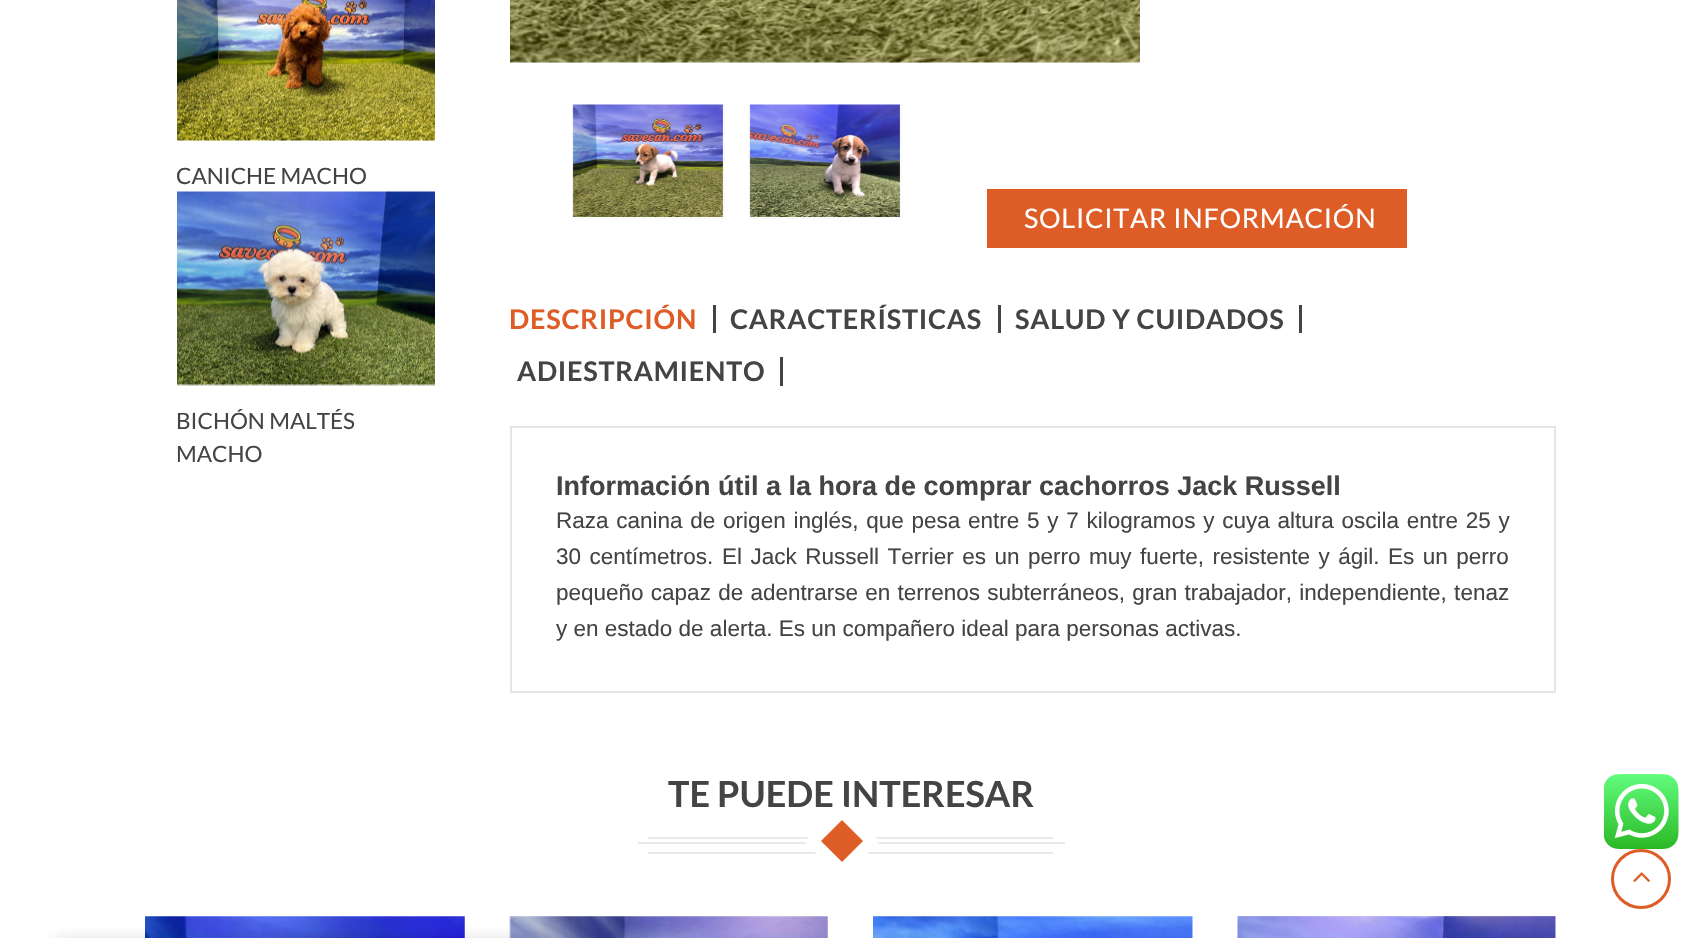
void draw(SkCanvas* canvas) {
	SkPaint paint;
	paint.setAntiAlias(true);
	auto spacedText = [&](const char* s, float x, float y, const SkFont& font, const SkPaint& ink, float letter, float word) {
		std::vector<SkGlyphID> glyphs(font.countText(s, strlen(s), SkTextEncoding::kUTF8));
		std::vector<float> xs(glyphs.size());
		font.textToGlyphs(s, strlen(s), SkTextEncoding::kUTF8, glyphs);
		font.getXPos(glyphs, xs, x);
		float extra = 0;
		for (size_t i = 0; i < glyphs.size(); i++) {
			xs[i] += extra;
			extra += letter + word * (glyphs[i] == font.unicharToGlyph(' '));
		}
		canvas->drawTextBlob(SkTextBlob::MakeFromPosHGlyphs(glyphs, xs, y, font), 0, 0, ink);
	};
	auto svgPath = [&](const char* data, bool evenOdd = false) {
		SkPath result = *SkParsePath::FromSVGString(data);
		if (evenOdd) result.setFillType(SkPathFillType::kEvenOdd);
		return result;
	};
	canvas->clear(0xffffffff);
	canvas->drawImageRect(SkImages::DeferredFromEncodedData(SkData::MakeFromFileName("img1.png")), SkRect::MakeXYWH(177, 0, 258, 141), SkSamplingOptions());
	SkFont f1(fontMgr->matchFamilyStyle("Lato", SkFontStyle::Normal()), 22.5);
	f1.setSubpixel(true);
	paint.setColor(0xff444444);
	canvas->drawString("CANICHE MACHO", 176, 184, f1, paint);
	canvas->drawImageRect(SkImages::DeferredFromEncodedData(SkData::MakeFromFileName("img2.png")), SkRect::MakeXYWH(177, 191, 258, 195), SkSamplingOptions());
	canvas->drawString("BICHÓN MALTÉS", 176, 429, f1, paint);
	canvas->drawString("MACHO", 176, 462, f1, paint);
	canvas->drawImageRect(SkImages::DeferredFromEncodedData(SkData::MakeFromFileName("img3.png")), SkRect::MakeXYWH(510, 0, 630, 63), SkSamplingOptions());
	paint.setStroke(true);
	paint.setStrokeWidth(2);
	paint.setColor(0xfffafafa);
	canvas->drawRect(SkRect::MakeXYWH(573, 105, 151, 113), paint);
	canvas->drawImageRect(SkImages::DeferredFromEncodedData(SkData::MakeFromFileName("img4.png")), SkRect::MakeXYWH(572, 104, 151, 113), SkSamplingOptions());
	canvas->drawRect(SkRect::MakeXYWH(750, 105, 151, 113), paint);
	canvas->drawImageRect(SkImages::DeferredFromEncodedData(SkData::MakeFromFileName("img5.png")), SkRect::MakeXYWH(749, 104, 151, 113), SkSamplingOptions());
	paint.setStroke(false);
	paint.setColor(0xffde5d26);
	canvas->drawRect(SkRect::MakeXYWH(987, 189, 420, 59), paint);
	SkFont f2(fontMgr->matchFamilyStyle("Lato", SkFontStyle::Normal()), 27);
	f2.setSubpixel(true);
	paint.setColor(0xffffffff);
	spacedText("SOLICITAR INFORMACIÓN", 1024, 228, f2, paint, 0.75, 0);
	paint.setColor(0xff444444);
	canvas->drawRect(SkRect::MakeXYWH(713, 305, 3, 28), paint);
	SkFont f3(fontMgr->matchFamilyStyle("Lato", SkFontStyle::Bold()), 27);
	f3.setSubpixel(true);
	paint.setColor(0xffde5d26);
	spacedText("DESCRIPCIÓN", 509, 329, f3, paint, 0.75, 0);
	paint.setColor(0xff444444);
	canvas->drawRect(SkRect::MakeXYWH(998, 305, 3, 28), paint);
	spacedText("CARACTERÍSTICAS", 730, 329, f3, paint, 0.75, 0);
	canvas->drawRect(SkRect::MakeXYWH(1299, 305, 3, 28), paint);
	spacedText("SALUD Y CUIDADOS", 1015, 329, f3, paint, 0.75, 0);
	canvas->drawRect(SkRect::MakeXYWH(780, 357, 3, 29), paint);
	spacedText("ADIESTRAMIENTO", 517, 381, f3, paint, 0.75, 0);
	paint.setStroke(true);
	paint.setColor(0xffe5e5e5);
	canvas->drawRect(SkRect::MakeXYWH(511, 427, 1044, 265), paint);
	SkFont f4(fontMgr->matchFamilyStyle("Liberation Sans", SkFontStyle::Bold()), 27);
	f4.setSubpixel(true);
	paint.setStroke(false);
	paint.setColor(0xff444444);
	canvas->drawString("Información útil a la hora de comprar cachorros Jack Russell", 556, 495, f4, paint);
	SkFont f5(fontMgr->matchFamilyStyle("Liberation Sans", SkFontStyle::Normal()), 22.5);
	f5.setSubpixel(true);
	spacedText("Raza canina de origen inglés, que pesa entre 5 y 7 kilogramos y cuya altura oscila entre 25 y", 556, 528, f5, paint, 0, 1.5);
	spacedText("30 centímetros.", 556, 564, f5, paint, 0, 2.25);
	spacedText("El Jack Russell Terrier es un perro muy fuerte, resistente y ágil. Es un perro", 722, 564, f5, paint, 0, 2.25);
	spacedText("pequeño capaz de adentrarse en terrenos subterráneos, gran trabajador, independiente, tenaz", 556, 600, f5, paint, 0, 1);
	canvas->drawString("y en estado de alerta. Es un compañero ideal para personas activas.", 556, 636, f5, paint);
	SkFont f6(fontMgr->matchFamilyStyle("Lato", SkFontStyle::Bold()), 36);
	f6.setSubpixel(true);
	canvas->drawString("TE PUEDE INTERESAR", 668, 807, f6, paint);
	paint.setColor(0xffe9e7e7);
	canvas->drawRect(SkRect::MakeXYWH(648, 837, 405, 2), paint);
	canvas->drawRect(SkRect::MakeXYWH(638, 842, 427, 2), paint);
	canvas->drawRect(SkRect::MakeXYWH(648, 852, 405, 2), paint);
	paint.setStroke(true);
	paint.setStrokeWidth(12);
	paint.setColor(0xffffffff);
	canvas->drawPath(svgPath("M812.5 841.5L842 812L871.5 841.5L842 871Z"), paint);
	paint.setStroke(false);
	paint.setColor(0xffde5d26);
	canvas->drawPath(svgPath("M821 841L842 820L863 841L842 862Z"), paint);
	canvas->drawImageRect(SkImages::DeferredFromEncodedData(SkData::MakeFromFileName("img6.png")), SkRect::MakeXYWH(145, 916, 320, 22), SkSamplingOptions());
	canvas->drawImageRect(SkImages::DeferredFromEncodedData(SkData::MakeFromFileName("img7.png")), SkRect::MakeXYWH(509, 916, 319, 22), SkSamplingOptions());
	canvas->drawImageRect(SkImages::DeferredFromEncodedData(SkData::MakeFromFileName("img8.png")), SkRect::MakeXYWH(873, 916, 320, 22), SkSamplingOptions());
	canvas->drawImageRect(SkImages::DeferredFromEncodedData(SkData::MakeFromFileName("img9.png")), SkRect::MakeXYWH(1237, 916, 319, 22), SkSamplingOptions());
	canvas->drawImageRect(SkImages::DeferredFromEncodedData(SkData::MakeFromFileName("img10.png")), SkRect::MakeXYWH(1604, 774, 75, 75), SkSamplingOptions());
	paint.setStroke(true);
	paint.setStrokeWidth(3);
	canvas->drawCircle(1641, 879, 28.5, paint);
	canvas->drawImageRect(SkImages::DeferredFromEncodedData(SkData::MakeFromFileName("img11.png")), SkRect::MakeXYWH(1633, 872, 17, 10), SkSamplingOptions());
	paint.setStroke(false);
	paint.setColor(0x24000000);
	paint.setMaskFilter(SkMaskFilter::MakeBlur(kNormal_SkBlurStyle, 7));
	canvas->drawRoundRect(SkRect::MakeXYWH(45, 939, 525, 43), 23, 23, paint);
	paint.setMaskFilter(nullptr);
}
